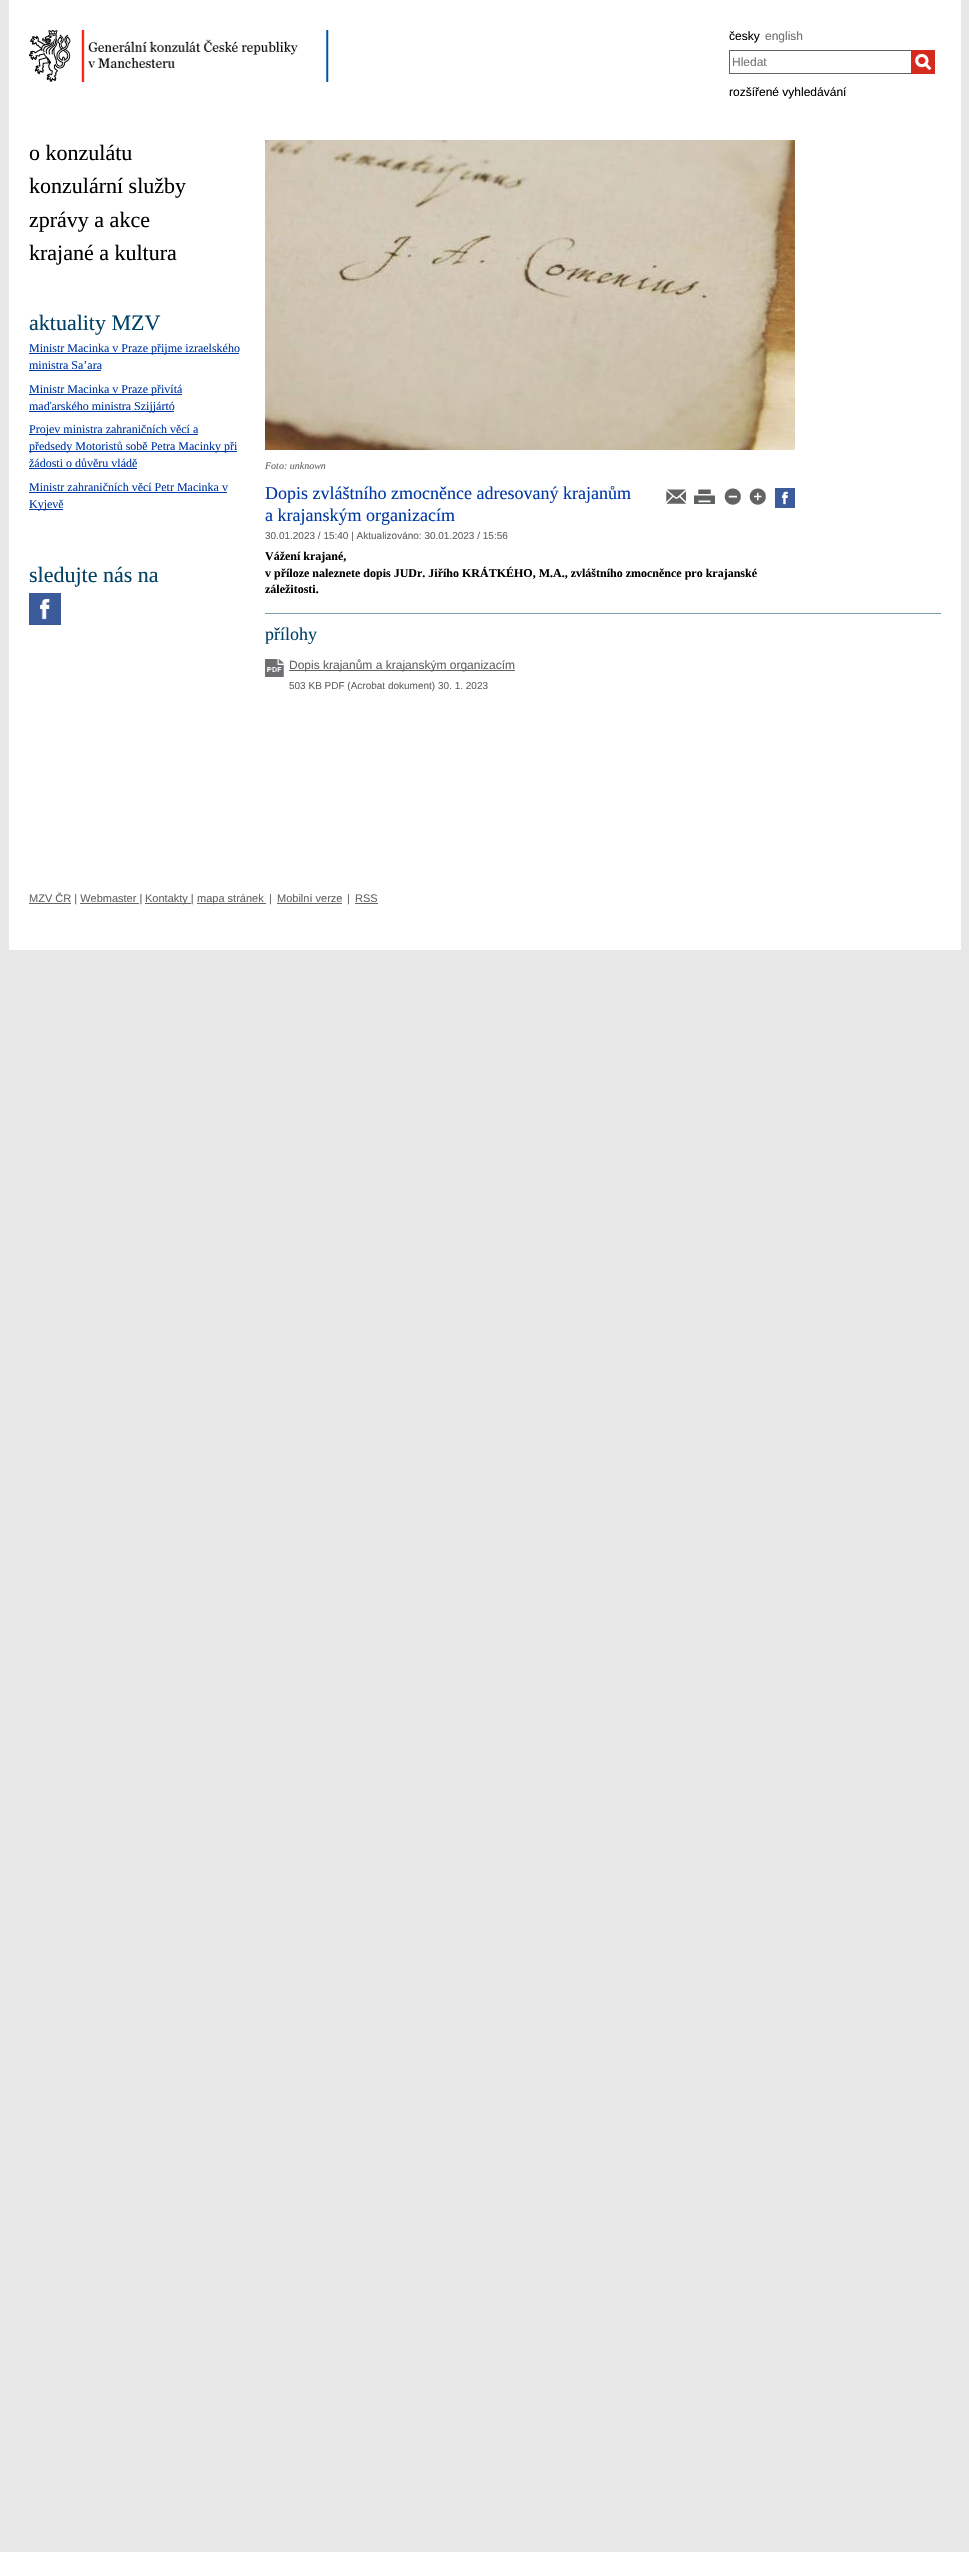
void draw(SkCanvas* canvas) {
	SkPaint paint;
	paint.setAntiAlias(true);
	canvas->clear(0xffe7e7e7);
	paint.setColor(0xffffffff);
	canvas->drawRect(SkRect::MakeXYWH(9, 0, 952, 950), paint);
	canvas->drawImageRect(SkImages::DeferredFromEncodedData(SkData::MakeFromFileName("img1.png")), SkRect::MakeXYWH(29, 30, 300, 52), SkSamplingOptions());
	SkFont f1(fontMgr->matchFamilyStyle("Liberation Sans", SkFontStyle::Normal()), 12);
	f1.setSubpixel(true);
	paint.setColor(0xff000000);
	canvas->drawString("česky", 729, 40, f1, paint);
	paint.setColor(0xff6d6f72);
	canvas->drawString("english", 765, 40, f1, paint);
	paint.setColor(0xff616365);
	canvas->drawRect(SkRect::MakeXYWH(729, 50, 182, 1), paint);
	canvas->drawRect(SkRect::MakeXYWH(729, 73, 182, 1), paint);
	canvas->drawRect(SkRect::MakeXYWH(729, 50, 1, 24), paint);
	paint.setColor(0xff757575);
	canvas->drawString("Hledat", 732, 66, f1, paint);
	canvas->drawImageRect(SkImages::DeferredFromEncodedData(SkData::MakeFromFileName("img2.png")), SkRect::MakeXYWH(911, 50, 24, 24), SkSamplingOptions());
	paint.setColor(0xff000000);
	canvas->drawString("rozšířené vyhledávání", 729, 96, f1, paint);
	SkFont f2(fontMgr->matchFamilyStyle("Liberation Serif", SkFontStyle::Normal()), 22);
	f2.setSubpixel(true);
	canvas->drawString("o konzulátu", 29, 160, f2, paint);
	canvas->drawString("konzulární služby", 29, 193, f2, paint);
	canvas->drawString("zprávy a akce", 29, 227, f2, paint);
	canvas->drawString("krajané a kultura", 29, 260, f2, paint);
	paint.setColor(0xff004165);
	canvas->drawString("aktuality MZV", 29, 330, f2, paint);
	paint.setColor(0xff0039a6);
	canvas->drawRect(SkRect::MakeXYWH(29, 353, 210, 1), paint);
	SkFont f3(fontMgr->matchFamilyStyle("Liberation Serif", SkFontStyle::Normal()), 12);
	f3.setSubpixel(true);
	canvas->drawString("Ministr Macinka v Praze přijme izraelského", 29, 352, f3, paint);
	canvas->drawString("ministra Sa’ara", 29, 369, f3, paint);
	canvas->drawRect(SkRect::MakeXYWH(29, 370, 72, 1), paint);
	canvas->drawRect(SkRect::MakeXYWH(29, 394, 153, 1), paint);
	canvas->drawString("Ministr Macinka v Praze přivítá", 29, 393, f3, paint);
	canvas->drawRect(SkRect::MakeXYWH(29, 411, 145, 1), paint);
	canvas->drawString("maďarského ministra Szijjártó", 29, 410, f3, paint);
	canvas->drawRect(SkRect::MakeXYWH(29, 434, 169, 1), paint);
	canvas->drawString("Projev ministra zahraničních věcí a", 29, 433, f3, paint);
	canvas->drawRect(SkRect::MakeXYWH(29, 451, 208, 1), paint);
	canvas->drawString("předsedy Motoristů sobě Petra Macinky při", 29, 450, f3, paint);
	canvas->drawString("žádosti o důvěru vládě", 29, 467, f3, paint);
	canvas->drawRect(SkRect::MakeXYWH(29, 468, 108, 1), paint);
	canvas->drawString("Ministr zahraničních věcí Petr Macinka v", 29, 491, f3, paint);
	canvas->drawRect(SkRect::MakeXYWH(29, 492, 198, 1), paint);
	canvas->drawRect(SkRect::MakeXYWH(29, 509, 34, 1), paint);
	canvas->drawString("Kyjevě", 29, 508, f3, paint);
	paint.setColor(0xff004165);
	canvas->drawString("sledujte nás na", 29, 582, f2, paint);
	canvas->drawImageRect(SkImages::DeferredFromEncodedData(SkData::MakeFromFileName("img3.png")), SkRect::MakeXYWH(29, 593, 32, 32), SkSamplingOptions());
	canvas->drawImageRect(SkImages::DeferredFromEncodedData(SkData::MakeFromFileName("img4.png")), SkRect::MakeXYWH(265, 140, 530, 310), SkSamplingOptions());
	SkFont f4(fontMgr->matchFamilyStyle("Liberation Serif", SkFontStyle::Italic()), 10);
	f4.setSubpixel(true);
	paint.setColor(0xff616365);
	canvas->drawString("Foto: unknown", 265, 469, f4, paint);
	SkFont f5(fontMgr->matchFamilyStyle("Liberation Serif", SkFontStyle::Normal()), 18);
	f5.setSubpixel(true);
	paint.setColor(0xff0039a6);
	canvas->drawString("Dopis zvláštního zmocněnce adresovaný krajanům", 265, 499, f5, paint);
	canvas->drawString("a krajanským organizacím", 265, 521, f5, paint);
	SkFont f6(fontMgr->matchFamilyStyle("Liberation Sans", SkFontStyle::Normal()), 10);
	f6.setSubpixel(true);
	paint.setColor(0xff616365);
	canvas->drawString("30.01.2023 / 15:40 | Aktualizováno: 30.01.2023 / 15:56", 265, 539, f6, paint);
	SkFont f7(fontMgr->matchFamilyStyle("Liberation Serif", SkFontStyle::Bold()), 12);
	f7.setSubpixel(true);
	paint.setColor(0xff000000);
	canvas->drawString("Vážení krajané,", 265, 560, f7, paint);
	canvas->drawString("v příloze naleznete dopis JUDr. Jiřího KRÁTKÉHO, M.A., zvláštního zmocněnce pro krajanské", 265, 577, f7, paint);
	canvas->drawString("záležitosti.", 265, 593, f7, paint);
	canvas->drawImageRect(SkImages::DeferredFromEncodedData(SkData::MakeFromFileName("img5.png")), SkRect::MakeXYWH(666, 489, 20, 15), SkSamplingOptions());
	canvas->drawImageRect(SkImages::DeferredFromEncodedData(SkData::MakeFromFileName("img6.png")), SkRect::MakeXYWH(694, 489, 21, 15), SkSamplingOptions());
	canvas->drawImageRect(SkImages::DeferredFromEncodedData(SkData::MakeFromFileName("img7.png")), SkRect::MakeXYWH(724, 488, 17, 17), SkSamplingOptions());
	canvas->drawImageRect(SkImages::DeferredFromEncodedData(SkData::MakeFromFileName("img8.png")), SkRect::MakeXYWH(749, 488, 17, 17), SkSamplingOptions());
	canvas->drawImageRect(SkImages::DeferredFromEncodedData(SkData::MakeFromFileName("img9.png")), SkRect::MakeXYWH(775, 488, 20, 20), SkSamplingOptions());
	paint.setColor(0xff7d9aaa);
	canvas->drawRect(SkRect::MakeXYWH(265, 613, 676, 1), paint);
	paint.setColor(0xff004165);
	canvas->drawString("přílohy", 265, 640, f5, paint);
	canvas->drawImageRect(SkImages::DeferredFromEncodedData(SkData::MakeFromFileName("img10.png")), SkRect::MakeXYWH(265, 659, 19, 18), SkSamplingOptions());
	paint.setColor(0xff616365);
	canvas->drawRect(SkRect::MakeXYWH(289, 670, 226, 1), paint);
	canvas->drawString("Dopis krajanům a krajanským organizacím", 289, 669, f1, paint);
	canvas->drawString("503 KB PDF (Acrobat dokument) 30. 1. 2023", 289, 689, f6, paint);
	canvas->drawRect(SkRect::MakeXYWH(29, 903, 42, 1), paint);
	SkFont f8(fontMgr->matchFamilyStyle("Liberation Sans", SkFontStyle::Normal()), 11);
	f8.setSubpixel(true);
	canvas->drawString("MZV ČR | Webmaster |", 29, 902, f8, paint);
	canvas->drawRect(SkRect::MakeXYWH(145, 903, 46, 1), paint);
	canvas->drawString("Kontakty |", 145, 902, f8, paint);
	canvas->drawRect(SkRect::MakeXYWH(197, 903, 66, 1), paint);
	canvas->drawString("mapa stránek", 197, 902, f8, paint);
	canvas->drawRect(SkRect::MakeXYWH(263, 903, 3, 1), paint);
	canvas->drawString("|", 269, 902, f8, paint);
	canvas->drawString("Mobilní verze", 277, 902, f8, paint);
	canvas->drawRect(SkRect::MakeXYWH(277, 903, 65, 1), paint);
	canvas->drawString("|", 347, 902, f8, paint);
	canvas->drawString("RSS", 355, 902, f8, paint);
	canvas->drawRect(SkRect::MakeXYWH(355, 903, 23, 1), paint);
	canvas->drawRect(SkRect::MakeXYWH(80, 903, 59, 1), paint);
}
